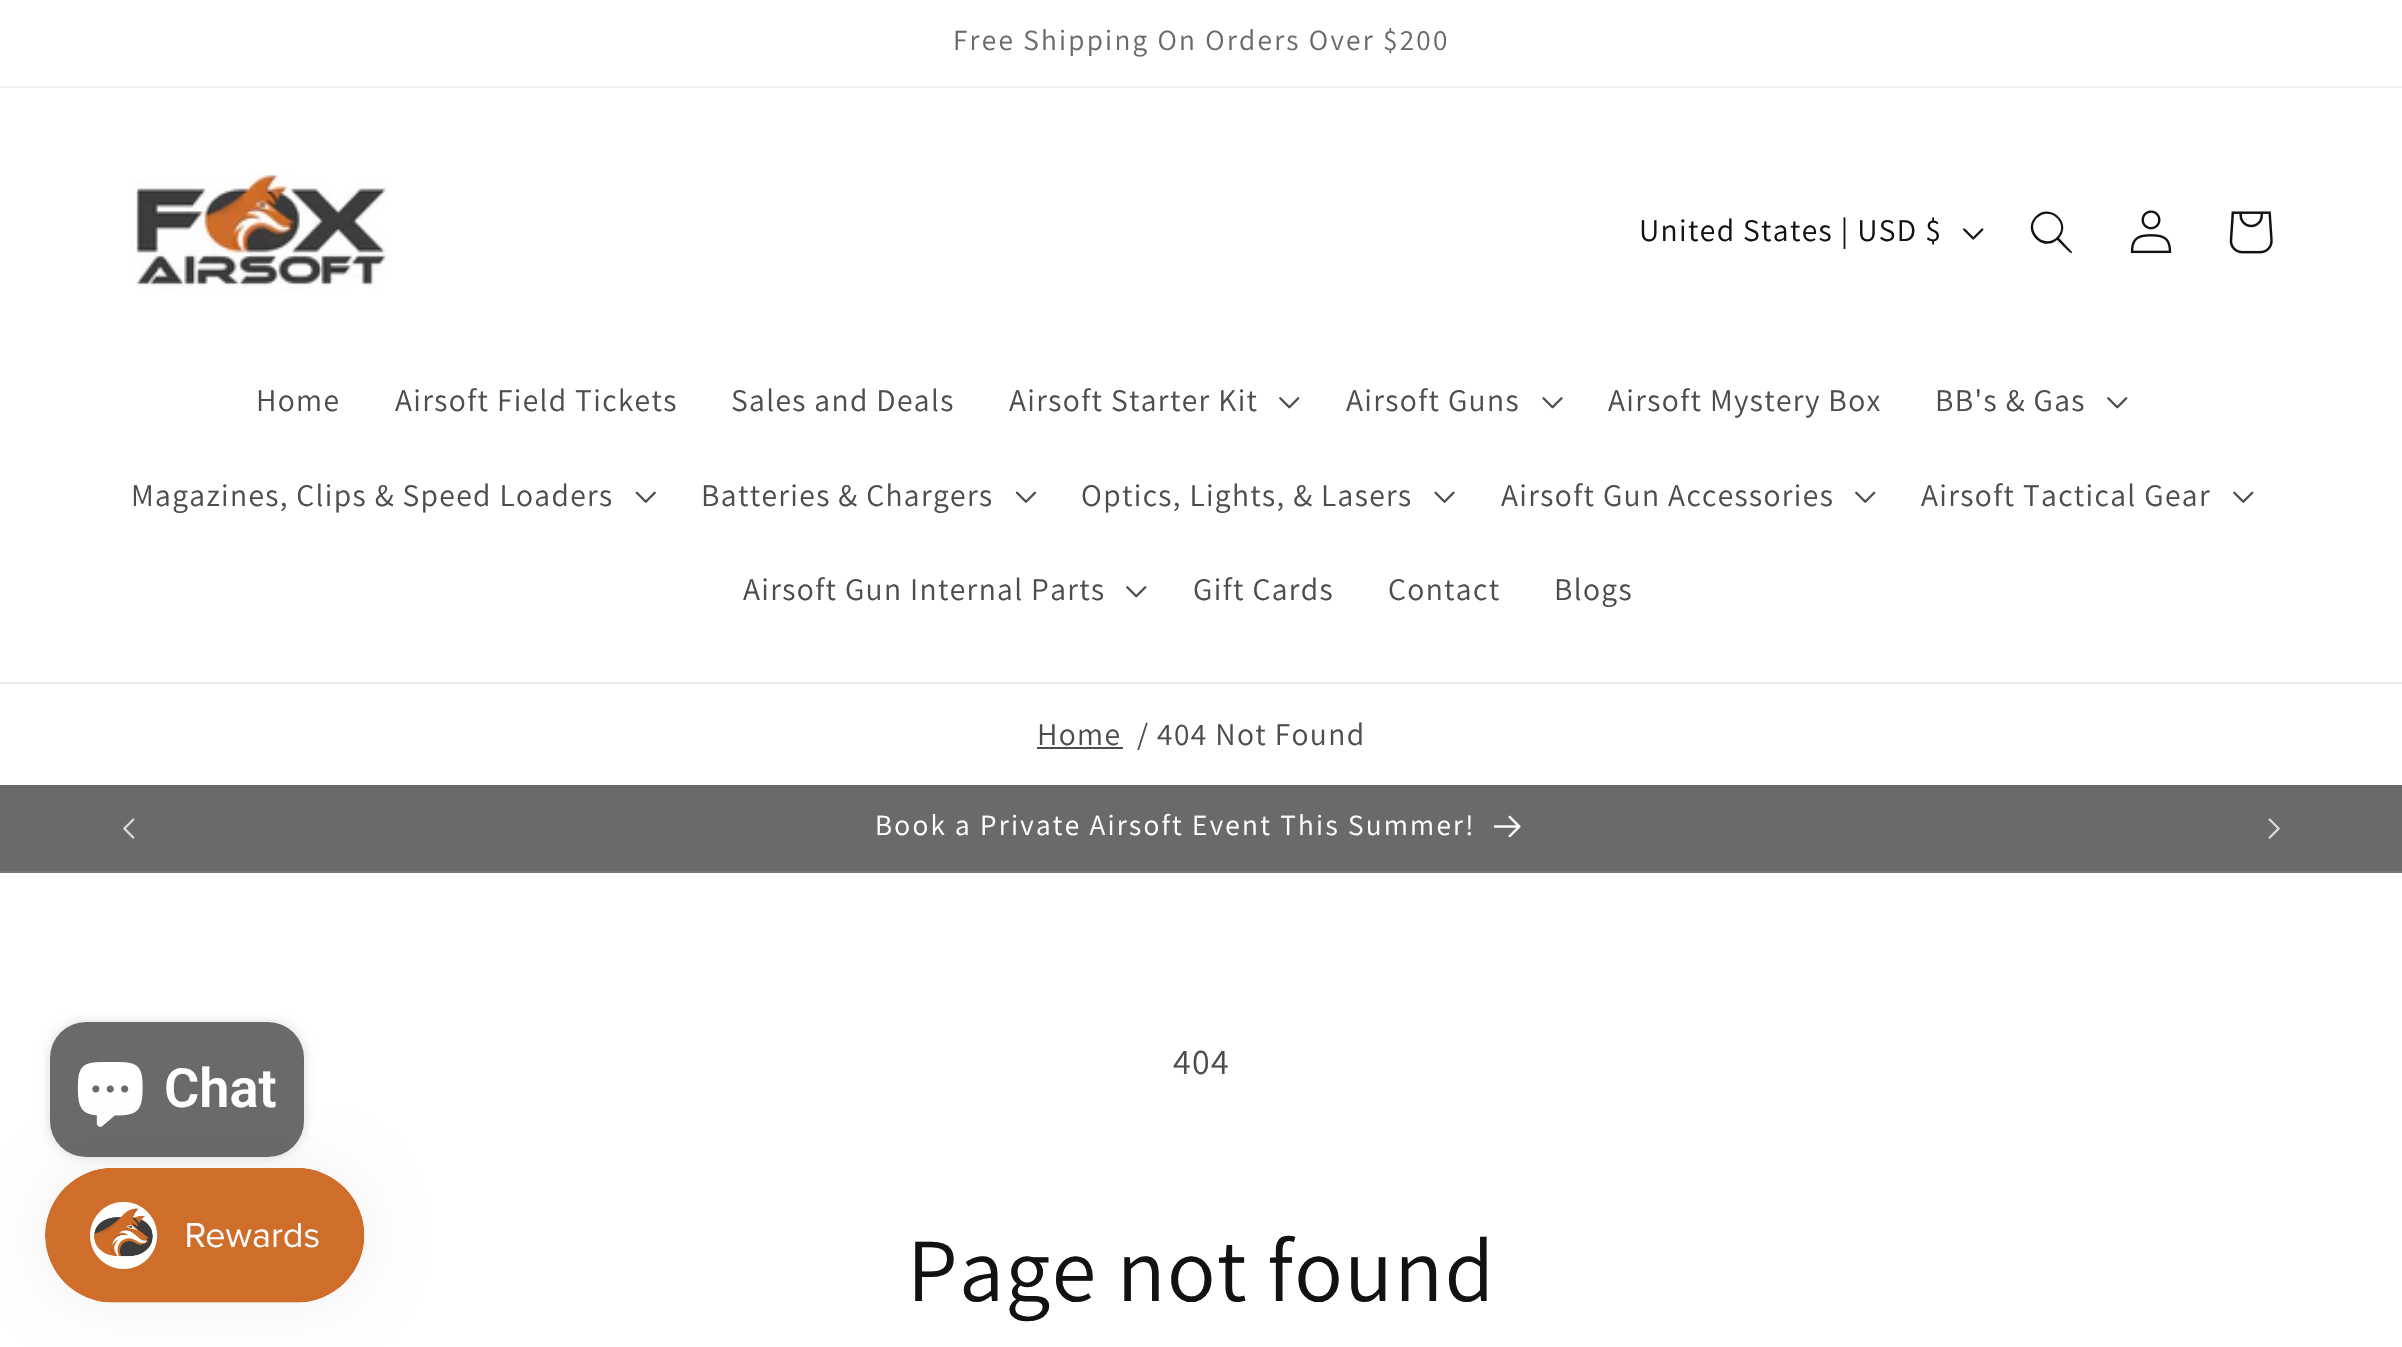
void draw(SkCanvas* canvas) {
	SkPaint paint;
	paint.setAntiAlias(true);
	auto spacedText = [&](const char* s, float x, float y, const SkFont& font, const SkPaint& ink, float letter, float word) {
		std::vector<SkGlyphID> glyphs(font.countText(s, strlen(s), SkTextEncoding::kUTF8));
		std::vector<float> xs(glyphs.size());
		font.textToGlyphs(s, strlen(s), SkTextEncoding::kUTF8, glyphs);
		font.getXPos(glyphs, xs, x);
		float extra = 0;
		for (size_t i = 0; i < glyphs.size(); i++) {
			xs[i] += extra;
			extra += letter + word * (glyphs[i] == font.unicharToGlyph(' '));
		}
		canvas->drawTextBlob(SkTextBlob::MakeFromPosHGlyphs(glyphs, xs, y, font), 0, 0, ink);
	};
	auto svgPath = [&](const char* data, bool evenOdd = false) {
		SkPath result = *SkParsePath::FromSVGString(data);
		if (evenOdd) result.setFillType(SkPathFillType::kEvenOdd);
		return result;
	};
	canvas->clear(0xffffffff);
	paint.setColor(0xfff3f3f3);
	canvas->drawRect(SkRect::MakeXYWH(0, 86, 2402, 2), paint);
	SkFont f1(fontMgr->matchFamilyStyle("Assistant", SkFontStyle::Normal()), 29.25);
	f1.setSubpixel(true);
	paint.setColor(0xff6a6a6a);
	spacedText("Free Shipping On Orders Over $200", 953, 50, f1, paint, 2.25, 0);
	paint.setColor(0xffececec);
	canvas->drawRect(SkRect::MakeXYWH(0, 682, 2402, 2), paint);
	canvas->drawImageRect(SkImages::DeferredFromEncodedData(SkData::MakeFromFileName("img1.png")), SkRect::MakeXYWH(131, 171, 260, 119), SkSamplingOptions());
	SkFont f2(fontMgr->matchFamilyStyle("Assistant", SkFontStyle::Normal()), 31.5);
	f2.setSubpixel(true);
	paint.setColor(0xff121212);
	spacedText("United States | USD $", 1639, 241, f2, paint, 1.35, 0);
	canvas->drawImageRect(SkImages::DeferredFromEncodedData(SkData::MakeFromFileName("img2.png")), SkRect::MakeXYWH(1963, 228, 21, 12), SkSamplingOptions());
	canvas->drawPath(svgPath("M2057 237C2044 250 2025 230 2037 218C2050 205 2070 224 2057 237ZM2057 240C2042 253 2021 230 2036 216C2050 202 2073 223 2059 238L2072 252V253C2070 254 2059 241 2057 240Z", true), paint);
	canvas->drawImageRect(SkImages::DeferredFromEncodedData(SkData::MakeFromFileName("img3.png")), SkRect::MakeXYWH(2130, 210, 42, 44), SkSamplingOptions());
	canvas->drawImageRect(SkImages::DeferredFromEncodedData(SkData::MakeFromFileName("img4.png")), SkRect::MakeXYWH(2229, 211, 44, 43), SkSamplingOptions());
	paint.setColor(0xff4d4d4d);
	spacedText("Home", 256, 411, f2, paint, 1.35, 0);
	spacedText("Airsoft Field Tickets", 395, 411, f2, paint, 1.35, 0);
	spacedText("Sales and Deals", 731, 411, f2, paint, 1.35, 0);
	spacedText("Airsoft Starter Kit", 1009, 411, f2, paint, 1.35, 0);
	canvas->drawImageRect(SkImages::DeferredFromEncodedData(SkData::MakeFromFileName("img5.png")), SkRect::MakeXYWH(1279, 397, 21, 12), SkSamplingOptions());
	spacedText("Airsoft Guns", 1346, 411, f2, paint, 1.35, 0);
	canvas->drawImageRect(SkImages::DeferredFromEncodedData(SkData::MakeFromFileName("img6.png")), SkRect::MakeXYWH(1542, 397, 21, 12), SkSamplingOptions());
	spacedText("Airsoft Mystery Box", 1608, 411, f2, paint, 1.35, 0);
	spacedText("BB's & Gas", 1935, 411, f2, paint, 1.35, 0);
	canvas->drawImageRect(SkImages::DeferredFromEncodedData(SkData::MakeFromFileName("img5.png")), SkRect::MakeXYWH(2107, 397, 21, 12), SkSamplingOptions());
	spacedText("Magazines, Clips & Speed Loaders", 131, 506, f2, paint, 1.35, 0);
	canvas->drawImageRect(SkImages::DeferredFromEncodedData(SkData::MakeFromFileName("img7.png")), SkRect::MakeXYWH(635, 491, 21, 12), SkSamplingOptions());
	spacedText("Batteries & Chargers", 701, 506, f2, paint, 1.35, 0);
	canvas->drawImageRect(SkImages::DeferredFromEncodedData(SkData::MakeFromFileName("img8.png")), SkRect::MakeXYWH(1015, 491, 22, 12), SkSamplingOptions());
	spacedText("Optics, Lights, & Lasers", 1081, 506, f2, paint, 1.35, 0);
	canvas->drawImageRect(SkImages::DeferredFromEncodedData(SkData::MakeFromFileName("img9.png")), SkRect::MakeXYWH(1434, 491, 21, 12), SkSamplingOptions());
	spacedText("Airsoft Gun Accessories", 1501, 506, f2, paint, 1.35, 0);
	canvas->drawImageRect(SkImages::DeferredFromEncodedData(SkData::MakeFromFileName("img10.png")), SkRect::MakeXYWH(1855, 491, 21, 12), SkSamplingOptions());
	spacedText("Airsoft Tactical Gear", 1921, 506, f2, paint, 1.35, 0);
	canvas->drawImageRect(SkImages::DeferredFromEncodedData(SkData::MakeFromFileName("img10.png")), SkRect::MakeXYWH(2233, 491, 21, 12), SkSamplingOptions());
	spacedText("Airsoft Gun Internal Parts", 743, 600, f2, paint, 1.35, 0);
	canvas->drawImageRect(SkImages::DeferredFromEncodedData(SkData::MakeFromFileName("img5.png")), SkRect::MakeXYWH(1126, 586, 21, 12), SkSamplingOptions());
	spacedText("Gift Cards", 1193, 600, f2, paint, 1.35, 0);
	spacedText("Contact", 1388, 600, f2, paint, 1.35, 0);
	spacedText("Blogs", 1554, 600, f2, paint, 1.35, 0);
	spacedText("Home", 1037, 745, f2, paint, 1.35, 0);
	canvas->drawRect(SkRect::MakeXYWH(1037, 747, 86, 2), paint);
	spacedText("/ 404 Not Found", 1137, 745, f2, paint, 1.35, 0);
	paint.setColor(0xff6a6a6a);
	canvas->drawRect(SkRect::MakeXYWH(0, 785, 2402, 86), paint);
	paint.setColor(0xff767676);
	canvas->drawRect(SkRect::MakeXYWH(0, 871, 2402, 2), paint);
	canvas->drawImageRect(SkImages::DeferredFromEncodedData(SkData::MakeFromFileName("img11.png")), SkRect::MakeXYWH(123, 818, 12, 21), SkSamplingOptions());
	paint.setColor(0xffffffff);
	spacedText("Book a Private Airsoft Event This Summer!", 875, 835, f1, paint, 2.25, 0);
	canvas->drawImageRect(SkImages::DeferredFromEncodedData(SkData::MakeFromFileName("img12.png")), SkRect::MakeXYWH(1494, 815, 27, 22), SkSamplingOptions());
	canvas->drawImageRect(SkImages::DeferredFromEncodedData(SkData::MakeFromFileName("img13.png")), SkRect::MakeXYWH(2268, 818, 12, 21), SkSamplingOptions());
	paint.setColor(0x26000000);
	paint.setMaskFilter(SkMaskFilter::MakeBlur(kNormal_SkBlurStyle, 5.5));
	canvas->drawRoundRect(SkRect::MakeXYWH(50, 1022, 254, 135), 36, 36, paint);
	paint.setMaskFilter(nullptr);
	paint.setColor(0xff6a6a6a);
	canvas->drawRoundRect(SkRect::MakeXYWH(50, 1022, 254, 135), 36, 36, paint);
	canvas->drawImageRect(SkImages::DeferredFromEncodedData(SkData::MakeFromFileName("img14.png")), SkRect::MakeXYWH(77, 1062, 66, 65), SkSamplingOptions());
	SkFont f3(fontMgr->matchFamilyStyle("Roboto", SkFontStyle(600, SkFontStyle::kNormal_Width, SkFontStyle::kUpright_Slant)), 54);
	f3.setSubpixel(true);
	paint.setColor(0xffffffff);
	canvas->drawString("Chat", 164, 1107, f3, paint);
	SkFont f4(fontMgr->matchFamilyStyle("Assistant", SkFontStyle::Normal()), 36);
	f4.setSubpixel(true);
	paint.setColor(0xff4d4d4d);
	spacedText("404", 1173, 1074, f4, paint, 1.35, 0);
	SkFont f5(fontMgr->matchFamilyStyle("Assistant", SkFontStyle::Normal()), 90);
	f5.setSubpixel(true);
	paint.setColor(0xff121212);
	spacedText("Page not found", 907, 1301, f5, paint, 1.35, 0);
	paint.setColor(0x0d000000);
	paint.setMaskFilter(SkMaskFilter::MakeBlur(kNormal_SkBlurStyle, 28));
	canvas->drawRoundRect(SkRect::MakeXYWH(45, 1168, 320, 135), 67.5, 67.5, paint);
	paint.setMaskFilter(nullptr);
	canvas->drawImageRect(SkImages::DeferredFromEncodedData(SkData::MakeFromFileName("img15.png")), SkRect::MakeXYWH(45, 1168, 320, 135), SkSamplingOptions());
}
